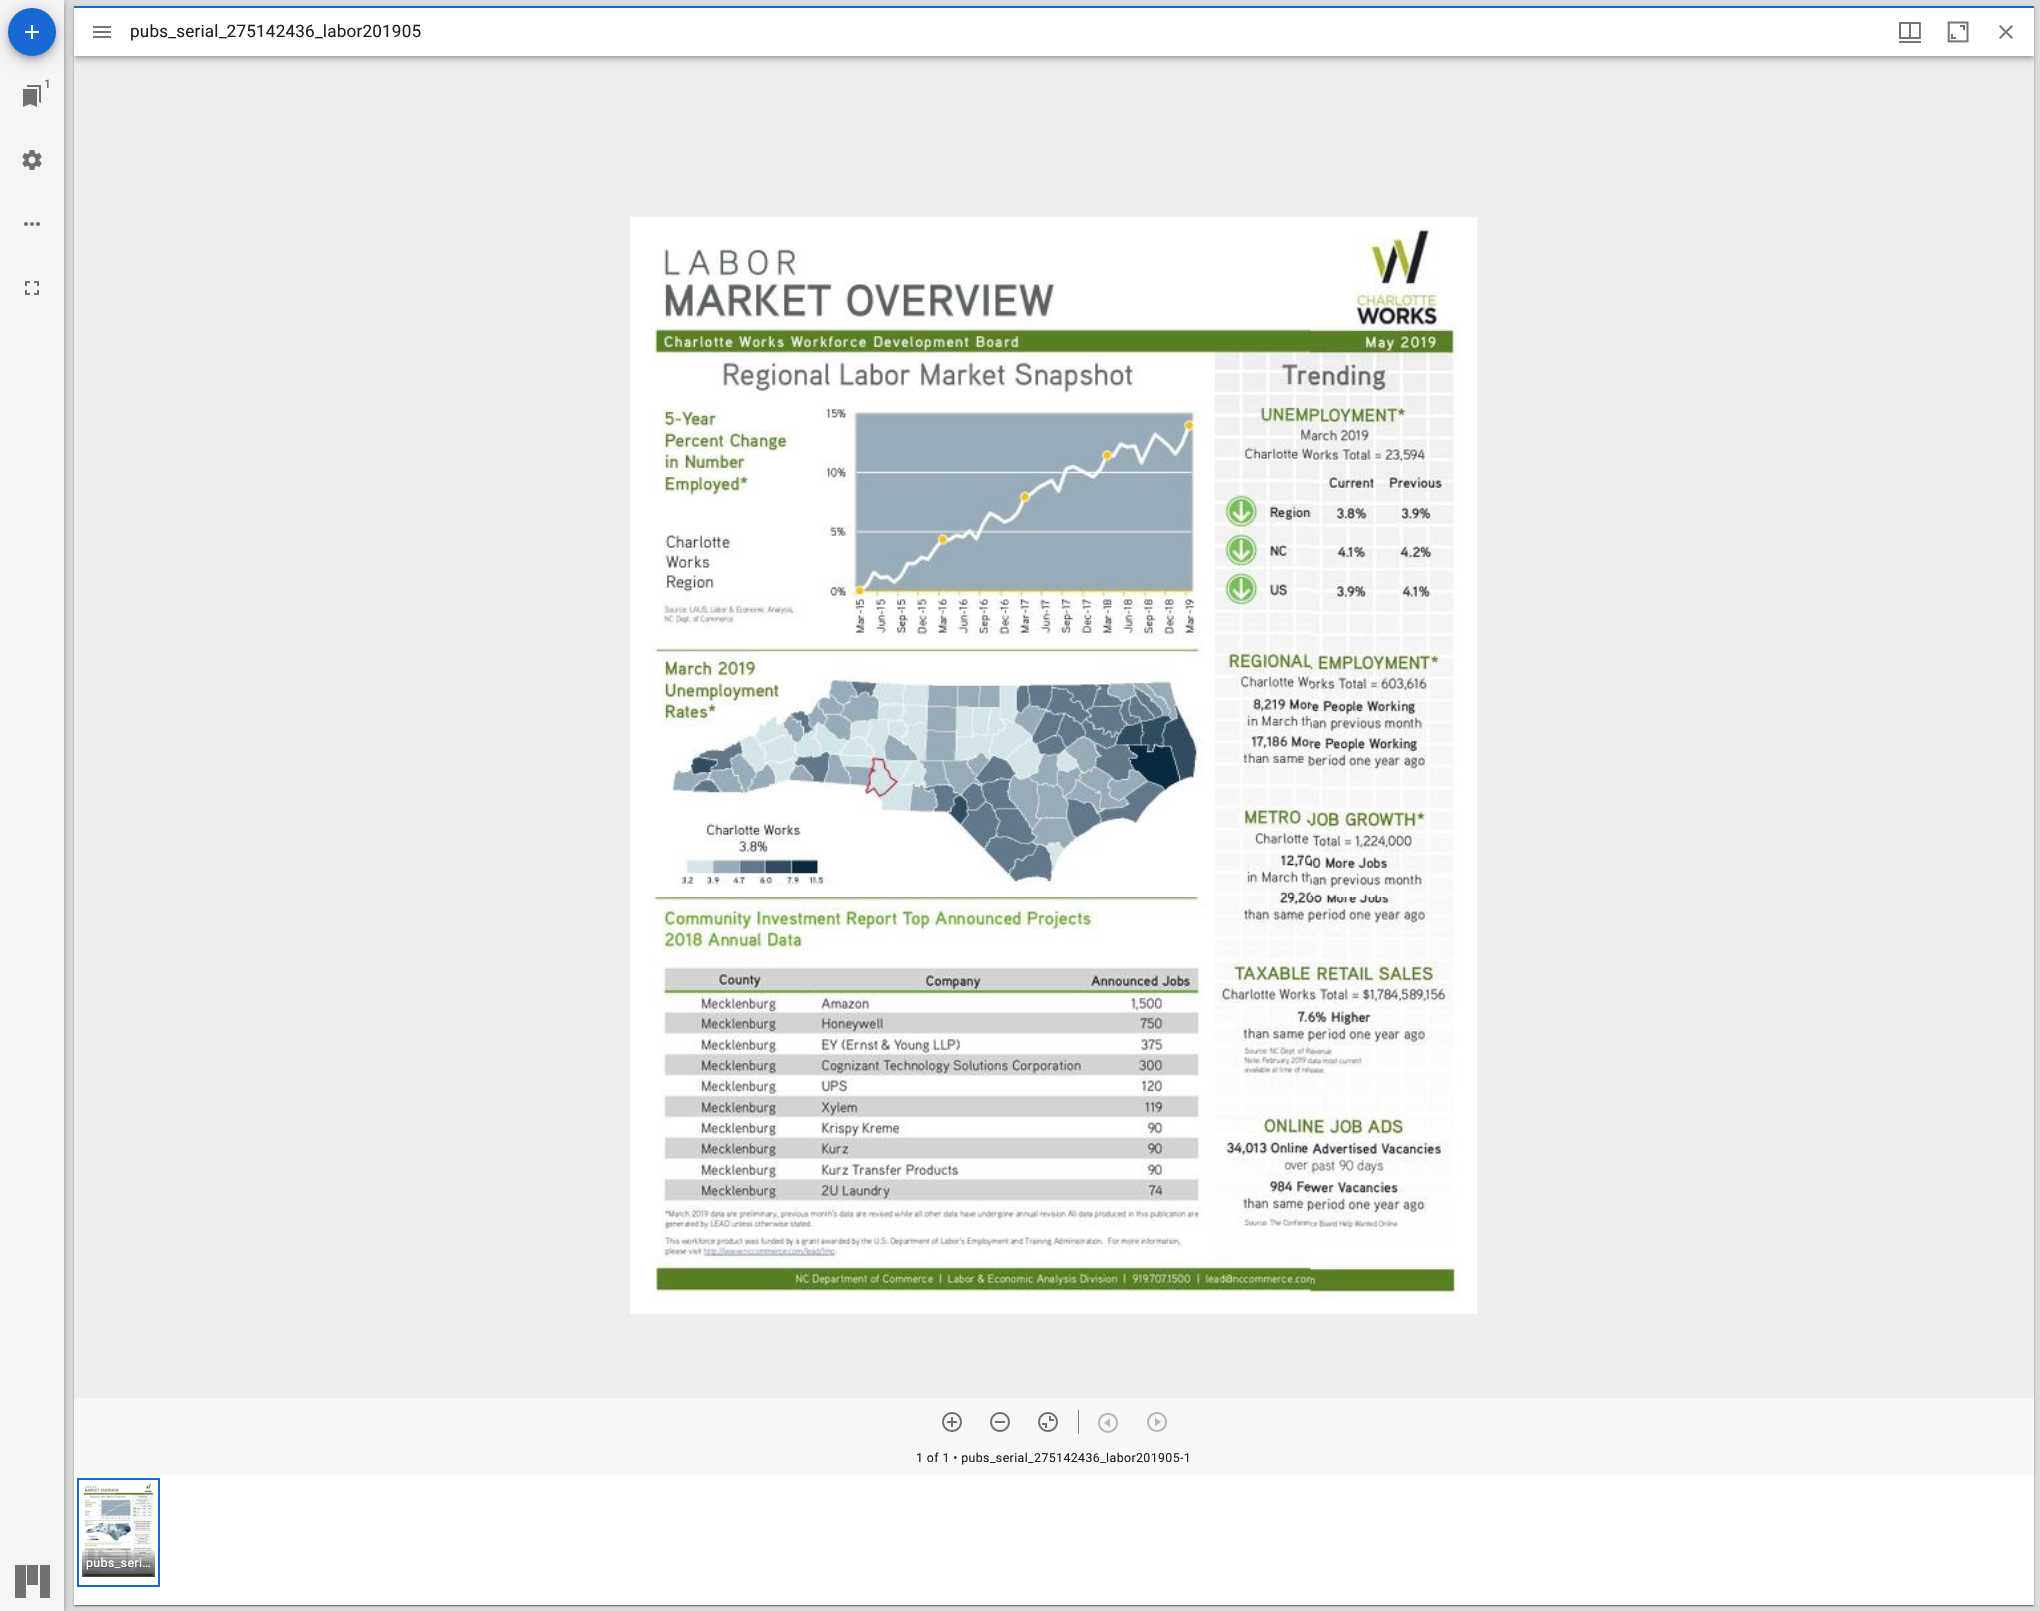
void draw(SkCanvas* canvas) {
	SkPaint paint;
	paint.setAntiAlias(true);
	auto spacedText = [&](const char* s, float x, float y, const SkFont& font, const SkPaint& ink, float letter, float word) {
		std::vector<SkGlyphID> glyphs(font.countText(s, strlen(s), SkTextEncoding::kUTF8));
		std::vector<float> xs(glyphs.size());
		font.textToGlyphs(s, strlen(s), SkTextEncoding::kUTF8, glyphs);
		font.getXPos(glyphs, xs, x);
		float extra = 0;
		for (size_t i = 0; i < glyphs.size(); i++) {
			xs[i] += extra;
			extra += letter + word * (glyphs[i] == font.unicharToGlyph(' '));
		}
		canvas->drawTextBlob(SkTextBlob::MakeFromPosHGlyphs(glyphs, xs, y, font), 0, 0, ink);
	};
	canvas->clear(0xffdcdcdc);
	paint.setColor(0x33000000);
	paint.setMaskFilter(SkMaskFilter::MakeBlur(kNormal_SkBlurStyle, 0.5));
	canvas->drawRect(SkRect::MakeXYWH(75, 9, 1958, 1597), paint);
	paint.setMaskFilter(nullptr);
	paint.setMaskFilter(SkMaskFilter::MakeBlur(kNormal_SkBlurStyle, 0.5));
	canvas->drawRect(SkRect::MakeXYWH(74, 7, 1960, 1599), paint);
	paint.setMaskFilter(nullptr);
	paint.setMaskFilter(SkMaskFilter::MakeBlur(kNormal_SkBlurStyle, 1.5));
	canvas->drawRect(SkRect::MakeXYWH(74, 7, 1960, 1599), paint);
	paint.setMaskFilter(nullptr);
	paint.setColor(0xffeeeeee);
	canvas->drawRect(SkRect::MakeXYWH(74, 56, 1960, 1342), paint);
	canvas->save();
	canvas->clipRect(SkRect::MakeXYWH(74, 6, 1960, 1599));
	paint.setColor(0x1f000000);
	paint.setMaskFilter(SkMaskFilter::MakeBlur(kNormal_SkBlurStyle, 5));
	canvas->drawRect(SkRect::MakeXYWH(74, 7, 1960, 50), paint);
	paint.setMaskFilter(nullptr);
	paint.setColor(0x24000000);
	paint.setMaskFilter(SkMaskFilter::MakeBlur(kNormal_SkBlurStyle, 2.5));
	canvas->drawRect(SkRect::MakeXYWH(74, 10, 1960, 50), paint);
	paint.setMaskFilter(nullptr);
	canvas->restore();
	paint.setColor(0x33000000);
	paint.setMaskFilter(SkMaskFilter::MakeBlur(kNormal_SkBlurStyle, 2));
	canvas->drawRect(SkRect::MakeXYWH(75, 9, 1958, 48), paint);
	paint.setMaskFilter(nullptr);
	paint.setColor(0xffffffff);
	canvas->drawRect(SkRect::MakeXYWH(74, 8, 1960, 48), paint);
	paint.setColor(0xff1967d2);
	canvas->drawRect(SkRect::MakeXYWH(74, 6, 1960, 2), paint);
	paint.setColor(0xfff7f7f7);
	canvas->drawRect(SkRect::MakeXYWH(74, 1398, 1960, 77), paint);
	paint.setColor(0xffffffff);
	canvas->drawRect(SkRect::MakeXYWH(74, 1475, 1960, 130), paint);
	paint.setStroke(true);
	paint.setStrokeWidth(2);
	paint.setColor(0xff1967d2);
	canvas->drawRect(SkRect::MakeXYWH(78, 1479, 81, 107), paint);
	paint.setStroke(false);
	paint.setColor(0x1f000000);
	paint.setMaskFilter(SkMaskFilter::MakeBlur(kNormal_SkBlurStyle, 5));
	canvas->drawRect(SkRect::MakeXYWH(0, 1, 64, 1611), paint);
	paint.setMaskFilter(nullptr);
	paint.setColor(0x24000000);
	paint.setMaskFilter(SkMaskFilter::MakeBlur(kNormal_SkBlurStyle, 2.5));
	canvas->drawRect(SkRect::MakeXYWH(0, 4, 64, 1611), paint);
	paint.setMaskFilter(nullptr);
	paint.setColor(0x33000000);
	paint.setMaskFilter(SkMaskFilter::MakeBlur(kNormal_SkBlurStyle, 2));
	canvas->drawRect(SkRect::MakeXYWH(1, 3, 62, 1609), paint);
	paint.setMaskFilter(nullptr);
	paint.setColor(0xfff5f5f5);
	canvas->drawRect(SkRect::MakeXYWH(0, 0, 64, 1611), paint);
	paint.setColor(0x1f000000);
	paint.setMaskFilter(SkMaskFilter::MakeBlur(kNormal_SkBlurStyle, 9));
	canvas->drawRoundRect(SkRect::MakeXYWH(8, 9, 48, 48), 24, 24, paint);
	paint.setMaskFilter(nullptr);
	paint.setColor(0x24000000);
	paint.setMaskFilter(SkMaskFilter::MakeBlur(kNormal_SkBlurStyle, 5));
	canvas->drawRoundRect(SkRect::MakeXYWH(8, 14, 48, 48), 24, 24, paint);
	paint.setMaskFilter(nullptr);
	paint.setColor(0x33000000);
	paint.setMaskFilter(SkMaskFilter::MakeBlur(kNormal_SkBlurStyle, 2.5));
	canvas->drawRoundRect(SkRect::MakeXYWH(9, 12, 46, 46), 23, 23, paint);
	paint.setMaskFilter(nullptr);
	paint.setColor(0xff1967d2);
	canvas->drawCircle(32, 32, 24, paint);
	canvas->drawImageRect(SkImages::DeferredFromEncodedData(SkData::MakeFromFileName("img1.png")), SkRect::MakeXYWH(25, 25, 14, 14), SkSamplingOptions());
	SkFont f1(fontMgr->matchFamilyStyle("Roboto", SkFontStyle(500, SkFontStyle::kNormal_Width, SkFontStyle::kUpright_Slant)), 12);
	f1.setSubpixel(true);
	paint.setColor(0xff717171);
	canvas->drawString("1", 44, 88, f1, paint);
	canvas->drawImageRect(SkImages::DeferredFromEncodedData(SkData::MakeFromFileName("img2.png")), SkRect::MakeXYWH(23, 85, 18, 22), SkSamplingOptions());
	canvas->drawImageRect(SkImages::DeferredFromEncodedData(SkData::MakeFromFileName("img3.png")), SkRect::MakeXYWH(22, 150, 20, 20), SkSamplingOptions());
	canvas->drawImageRect(SkImages::DeferredFromEncodedData(SkData::MakeFromFileName("img4.png")), SkRect::MakeXYWH(24, 222, 16, 4), SkSamplingOptions());
	canvas->drawImageRect(SkImages::DeferredFromEncodedData(SkData::MakeFromFileName("img5.png")), SkRect::MakeXYWH(25, 281, 14, 14), SkSamplingOptions());
	canvas->drawRect(SkRect::MakeXYWH(15, 1565, 11, 33), paint);
	canvas->drawRect(SkRect::MakeXYWH(40, 1565, 10, 33), paint);
	canvas->drawRect(SkRect::MakeXYWH(27, 1565, 11, 20), paint);
	canvas->drawImageRect(SkImages::DeferredFromEncodedData(SkData::MakeFromFileName("img6.png")), SkRect::MakeXYWH(93, 26, 18, 12), SkSamplingOptions());
	SkFont f2(fontMgr->matchFamilyStyle("Roboto", SkFontStyle::Normal()), 17.1);
	f2.setSubpixel(true);
	paint.setColor(0xff202020);
	spacedText("pubs_serial_275142436_labor201905", 130, 37, f2, paint, 0.2, 0);
	canvas->drawImageRect(SkImages::DeferredFromEncodedData(SkData::MakeFromFileName("img7.png")), SkRect::MakeXYWH(1899, 22, 22, 21), SkSamplingOptions());
	canvas->drawImageRect(SkImages::DeferredFromEncodedData(SkData::MakeFromFileName("img8.png")), SkRect::MakeXYWH(1947, 21, 22, 22), SkSamplingOptions());
	canvas->drawImageRect(SkImages::DeferredFromEncodedData(SkData::MakeFromFileName("img9.png")), SkRect::MakeXYWH(1999, 25, 14, 14), SkSamplingOptions());
	canvas->drawImageRect(SkImages::DeferredFromEncodedData(SkData::MakeFromFileName("img10.png")), SkRect::MakeXYWH(630, 216, 848, 1098), SkSamplingOptions());
	canvas->drawImageRect(SkImages::DeferredFromEncodedData(SkData::MakeFromFileName("img11.png")), SkRect::MakeXYWH(942, 1412, 20, 20), SkSamplingOptions());
	canvas->drawImageRect(SkImages::DeferredFromEncodedData(SkData::MakeFromFileName("img12.png")), SkRect::MakeXYWH(990, 1412, 20, 20), SkSamplingOptions());
	canvas->drawImageRect(SkImages::DeferredFromEncodedData(SkData::MakeFromFileName("img13.png")), SkRect::MakeXYWH(1038, 1412, 20, 20), SkSamplingOptions());
	paint.setColor(0xff808080);
	canvas->drawRect(SkRect::MakeXYWH(1078, 1410, 1, 24), paint);
	canvas->drawImageRect(SkImages::DeferredFromEncodedData(SkData::MakeFromFileName("img14.png")), SkRect::MakeXYWH(1098, 1412, 20, 21), SkSamplingOptions());
	canvas->drawImageRect(SkImages::DeferredFromEncodedData(SkData::MakeFromFileName("img15.png")), SkRect::MakeXYWH(1147, 1412, 20, 20), SkSamplingOptions());
	SkFont f3(fontMgr->matchFamilyStyle("Roboto", SkFontStyle::Normal()), 12.35);
	f3.setSubpixel(true);
	paint.setColor(0xff202020);
	spacedText("1 of 1 • pubs_serial_275142436_labor201905-1", 916, 1462, f3, paint, 0.4, 0);
	canvas->drawImageRect(SkImages::DeferredFromEncodedData(SkData::MakeFromFileName("img16.png")), SkRect::MakeXYWH(82, 1483, 73, 95), SkSamplingOptions());
	{
		const SkColor colors[] = {0xb3000000, 0x4d000000, 0x00000000};
		const float stops[] = {0, 0.7, 1};
		const SkPoint ends[] = {{119, 1577}, {119, 1549}};
		paint.setShader(SkGradientShader::MakeLinear(ends, colors, stops, 3, SkTileMode::kClamp));
		paint.setAlpha(255);
	}
	canvas->drawRect(SkRect::MakeXYWH(82, 1550, 73, 27), paint);
	paint.setShader(nullptr);
	paint.setColor(0xffffffff);
	spacedText("pubs_seri…", 86, 1567, f3, paint, 0.4, 0);
}
